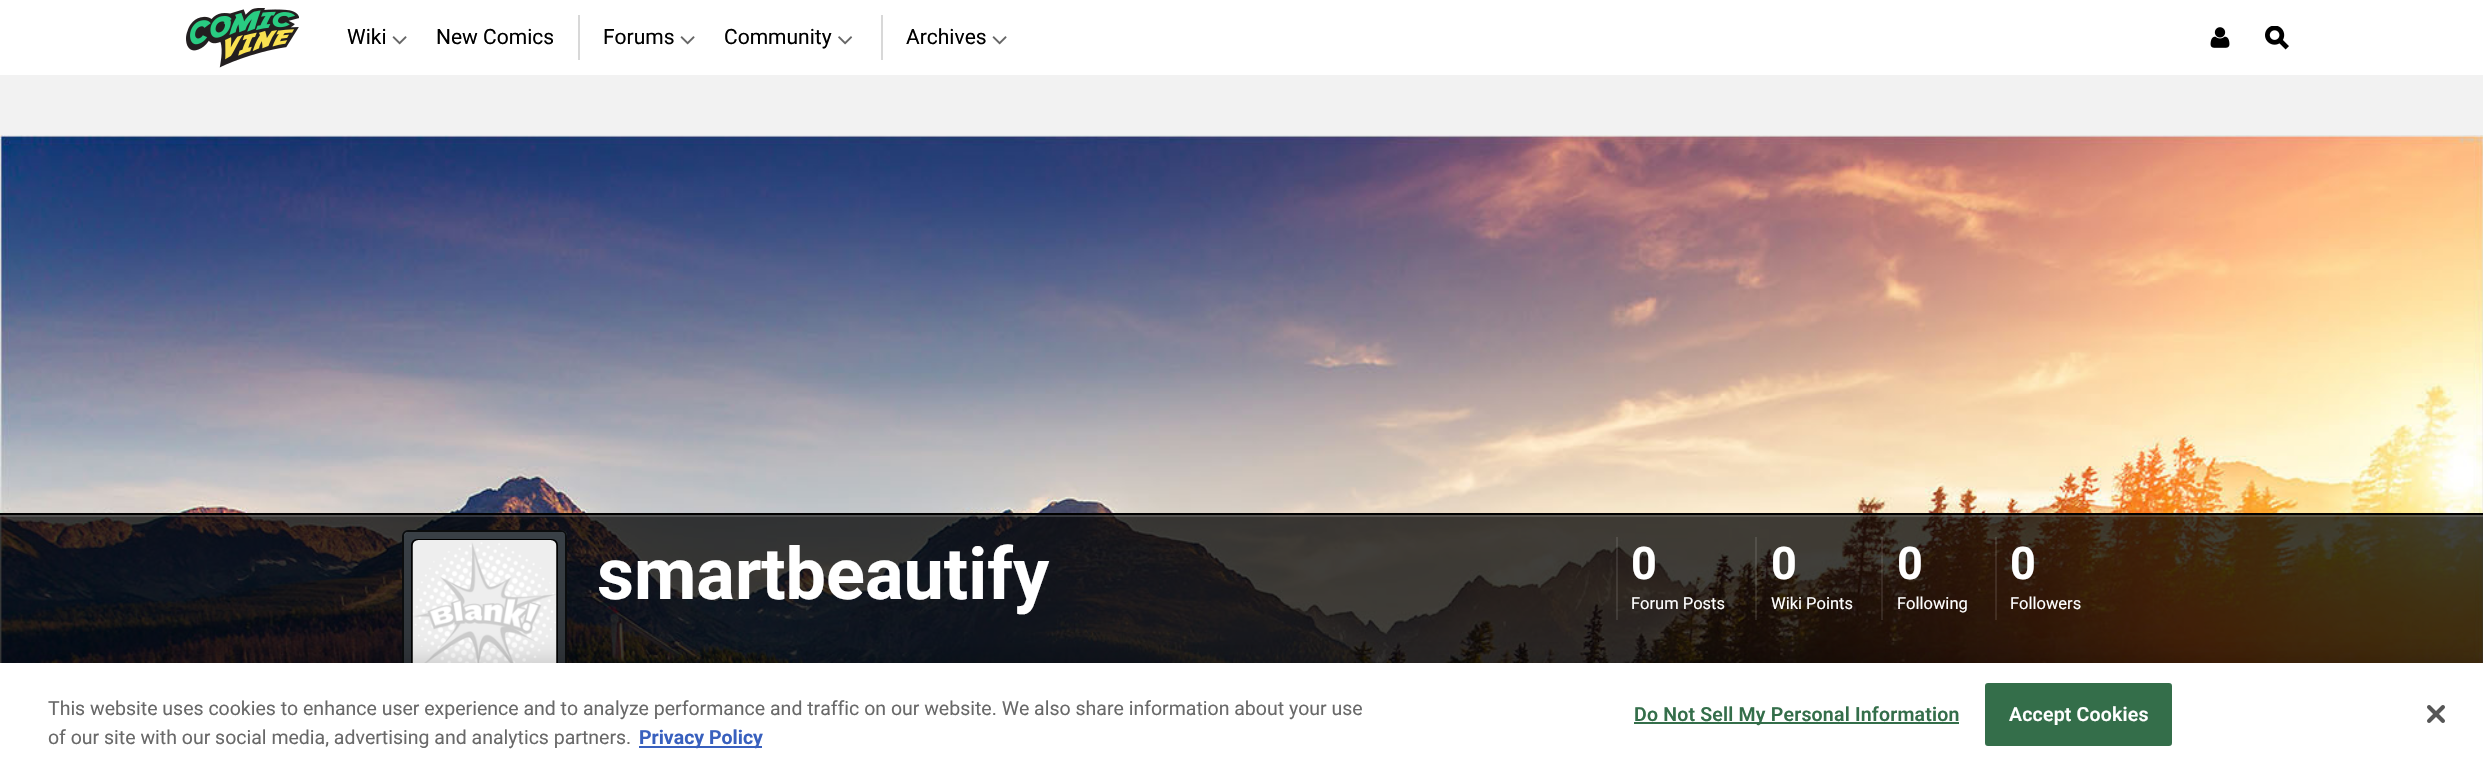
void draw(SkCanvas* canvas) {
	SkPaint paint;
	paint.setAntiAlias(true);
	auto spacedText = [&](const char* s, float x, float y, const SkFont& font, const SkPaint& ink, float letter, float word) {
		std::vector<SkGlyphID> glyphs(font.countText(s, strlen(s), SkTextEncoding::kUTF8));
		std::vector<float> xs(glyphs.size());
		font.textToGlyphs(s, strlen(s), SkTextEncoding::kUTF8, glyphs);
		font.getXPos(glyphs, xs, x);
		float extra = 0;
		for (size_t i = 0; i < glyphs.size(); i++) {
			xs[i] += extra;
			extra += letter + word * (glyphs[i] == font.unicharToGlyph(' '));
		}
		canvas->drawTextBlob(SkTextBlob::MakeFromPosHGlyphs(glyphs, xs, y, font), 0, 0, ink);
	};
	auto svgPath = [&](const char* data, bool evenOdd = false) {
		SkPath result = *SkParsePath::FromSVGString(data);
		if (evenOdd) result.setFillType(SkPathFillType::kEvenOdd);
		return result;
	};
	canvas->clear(0xfff2f2f2);
	paint.setColor(0xffffffff);
	canvas->drawRect(SkRect::MakeXYWH(0, 0, 2483, 75), paint);
	canvas->drawImageRect(SkImages::DeferredFromEncodedData(SkData::MakeFromFileName("img1.png")), SkRect::MakeXYWH(186, 8, 113, 60), SkSamplingOptions());
	SkFont f1(fontMgr->matchFamilyStyle("Roboto", SkFontStyle::Normal()), 21);
	f1.setSubpixel(true);
	paint.setColor(0xff000000);
	canvas->drawString("Wiki", 347, 44, f1, paint);
	canvas->drawImageRect(SkImages::DeferredFromEncodedData(SkData::MakeFromFileName("img2.png")), SkRect::MakeXYWH(392, 36, 15, 9), SkSamplingOptions());
	canvas->drawString("New Comics", 436, 44, f1, paint);
	paint.setColor(0xffd8d8d8);
	canvas->drawRect(SkRect::MakeXYWH(578, 15, 2, 45), paint);
	paint.setColor(0xff000000);
	canvas->drawString("Forums", 603, 44, f1, paint);
	canvas->drawImageRect(SkImages::DeferredFromEncodedData(SkData::MakeFromFileName("img2.png")), SkRect::MakeXYWH(680, 36, 15, 9), SkSamplingOptions());
	canvas->drawString("Community", 724, 44, f1, paint);
	canvas->drawImageRect(SkImages::DeferredFromEncodedData(SkData::MakeFromFileName("img3.png")), SkRect::MakeXYWH(838, 36, 15, 9), SkSamplingOptions());
	paint.setColor(0xffd8d8d8);
	canvas->drawRect(SkRect::MakeXYWH(881, 15, 2, 45), paint);
	paint.setColor(0xff000000);
	canvas->drawString("Archives", 906, 44, f1, paint);
	canvas->drawImageRect(SkImages::DeferredFromEncodedData(SkData::MakeFromFileName("img2.png")), SkRect::MakeXYWH(992, 36, 15, 9), SkSamplingOptions());
	canvas->drawImageRect(SkImages::DeferredFromEncodedData(SkData::MakeFromFileName("img4.png")), SkRect::MakeXYWH(2210, 27, 20, 21), SkSamplingOptions());
	canvas->drawImageRect(SkImages::DeferredFromEncodedData(SkData::MakeFromFileName("img5.png")), SkRect::MakeXYWH(2265, 26, 24, 24), SkSamplingOptions());
	canvas->drawImageRect(SkImages::DeferredFromEncodedData(SkData::MakeFromFileName("img6.png")), SkRect::MakeXYWH(0, 135, 2483, 528), SkSamplingOptions());
	paint.setColor(0x40ffffff);
	canvas->drawRect(SkRect::MakeXYWH(0, 135, 2483, 2), paint);
	paint.setColor(0xbf000000);
	canvas->drawRect(SkRect::MakeXYWH(0, 515, 2483, 148), paint);
	paint.setColor(0x26ffffff);
	canvas->drawRect(SkRect::MakeXYWH(0, 515, 2483, 2), paint);
	paint.setColor(0xff000000);
	canvas->drawRect(SkRect::MakeXYWH(0, 513, 2483, 2), paint);
	paint.setColor(0xff2c3035);
	canvas->drawRoundRect(SkRect::MakeXYWH(402, 530, 165, 165), 6, 6, paint);
	canvas->save();
	canvas->clipPath(svgPath("M408 530H561C564.5 530 567 532.5 567 536V689C567 692.5 564.5 695 561 695H408C404.5 695 402 692.5 402 689V536C402 532.5 404.5 530 408 530Z"), true);
	{
		const SkColor colors[] = {0xff394046, 0x00394046};
		const float stops[] = {0, 1};
		const SkPoint ends[] = {{485, 531}, {485, 693}};
		paint.setShader(SkGradientShader::MakeLinear(ends, colors, stops, 2, SkTileMode::kClamp));
		paint.setAlpha(255);
	}
	canvas->drawRect(SkRect::MakeXYWH(402, 531, 165, 132), paint);
	canvas->restore();
	paint.setShader(nullptr);
	paint.setColor(0xff575d62);
	canvas->drawPath(svgPath("M408 532H561C563 532 566 535 566 537V536C566 533 564 531 561 531H409C406 531 404 533 404 536V537C404 535 406 532 408 532Z"), paint);
	paint.setStroke(true);
	paint.setStrokeWidth(2);
	paint.setColor(0xff0b0d0e);
	canvas->drawRoundRect(SkRect::MakeXYWH(403, 531, 163, 163), 5, 5, paint);
	paint.setColor(0xff000000);
	canvas->drawRoundRect(SkRect::MakeXYWH(412, 540, 145, 145), 5, 5, paint);
	canvas->drawImageRect(SkImages::DeferredFromEncodedData(SkData::MakeFromFileName("img7.png")), SkRect::MakeXYWH(412, 540, 145, 123), SkSamplingOptions());
	SkFont f2(fontMgr->matchFamilyStyle("Roboto", SkFontStyle::Bold()), 72);
	f2.setSubpixel(true);
	paint.setStroke(false);
	paint.setColor(0xffffffff);
	canvas->drawString("smartbeautify", 597, 599, f2, paint);
	paint.setColor(0x1affffff);
	canvas->drawRect(SkRect::MakeXYWH(1616, 537, 2, 53), paint);
	SkFont f3(fontMgr->matchFamilyStyle("Roboto", SkFontStyle::Bold()), 45);
	f3.setSubpixel(true);
	paint.setColor(0xffffffff);
	canvas->drawString("0", 1631, 579, f3, paint);
	paint.setColor(0x1affffff);
	canvas->drawRect(SkRect::MakeXYWH(1755, 537, 2, 53), paint);
	paint.setColor(0xffffffff);
	canvas->drawString("0", 1771, 579, f3, paint);
	paint.setColor(0x1affffff);
	canvas->drawRect(SkRect::MakeXYWH(1881, 537, 2, 53), paint);
	paint.setColor(0xffffffff);
	canvas->drawString("0", 1897, 579, f3, paint);
	paint.setColor(0x1affffff);
	canvas->drawRect(SkRect::MakeXYWH(1995, 537, 2, 53), paint);
	paint.setColor(0xffffffff);
	canvas->drawString("0", 2010, 579, f3, paint);
	paint.setColor(0x1affffff);
	canvas->drawRect(SkRect::MakeXYWH(1616, 590, 2, 30), paint);
	SkFont f4(fontMgr->matchFamilyStyle("Roboto", SkFontStyle::Normal()), 16.5);
	f4.setSubpixel(true);
	paint.setColor(0xffffffff);
	canvas->drawString("Forum Posts", 1631, 609, f4, paint);
	paint.setColor(0x1affffff);
	canvas->drawRect(SkRect::MakeXYWH(1755, 590, 2, 30), paint);
	paint.setColor(0xffffffff);
	canvas->drawString("Wiki Points", 1771, 609, f4, paint);
	paint.setColor(0x1affffff);
	canvas->drawRect(SkRect::MakeXYWH(1881, 590, 2, 30), paint);
	paint.setColor(0xffffffff);
	canvas->drawString("Following", 1897, 609, f4, paint);
	paint.setColor(0x1affffff);
	canvas->drawRect(SkRect::MakeXYWH(1995, 590, 2, 30), paint);
	paint.setColor(0xffffffff);
	canvas->drawString("Followers", 2010, 609, f4, paint);
	paint.setColor(0x33000000);
	paint.setMaskFilter(SkMaskFilter::MakeBlur(kNormal_SkBlurStyle, 13.5));
	canvas->drawRect(SkRect::MakeXYWH(0, 663, 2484, 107), paint);
	paint.setMaskFilter(nullptr);
	paint.setColor(0xffffffff);
	canvas->drawRect(SkRect::MakeXYWH(0, 663, 2483, 106), paint);
	SkFont f5(fontMgr->matchFamilyStyle("Roboto", SkFontStyle::Normal()), 19.5);
	f5.setSubpixel(true);
	paint.setColor(0xff696969);
	canvas->drawString("This website uses cookies to enhance user experience and to analyze performance and traffic on our website. We also share information about your use", 48, 715, f5, paint);
	canvas->drawString("of our site with our social media, advertising and analytics partners.", 48, 744, f5, paint);
	paint.setColor(0xff3860be);
	canvas->drawRect(SkRect::MakeXYWH(639, 746, 123, 2), paint);
	SkFont f6(fontMgr->matchFamilyStyle("Roboto", SkFontStyle::Bold()), 19.5);
	f6.setSubpixel(true);
	canvas->drawString("Privacy Policy", 639, 744, f6, paint);
	paint.setColor(0xff346e4a);
	canvas->drawRect(SkRect::MakeXYWH(1634, 722, 325, 2), paint);
	SkFont f7(fontMgr->matchFamilyStyle("Roboto", SkFontStyle(600, SkFontStyle::kNormal_Width, SkFontStyle::kUpright_Slant)), 19.5);
	f7.setSubpixel(true);
	spacedText("Do Not Sell My Personal Information", 1634, 721, f7, paint, 0.2, 0);
	canvas->drawRoundRect(SkRect::MakeXYWH(1986, 684, 185, 61), 2, 2, paint);
	paint.setStroke(true);
	canvas->drawRoundRect(SkRect::MakeXYWH(1986, 684, 185, 61), 2, 2, paint);
	paint.setStroke(false);
	paint.setColor(0xffffffff);
	spacedText("Accept Cookies", 2009, 721, f7, paint, 0.2, 0);
	canvas->drawImageRect(SkImages::DeferredFromEncodedData(SkData::MakeFromFileName("img8.png")), SkRect::MakeXYWH(2427, 705, 18, 18), SkSamplingOptions());
}
